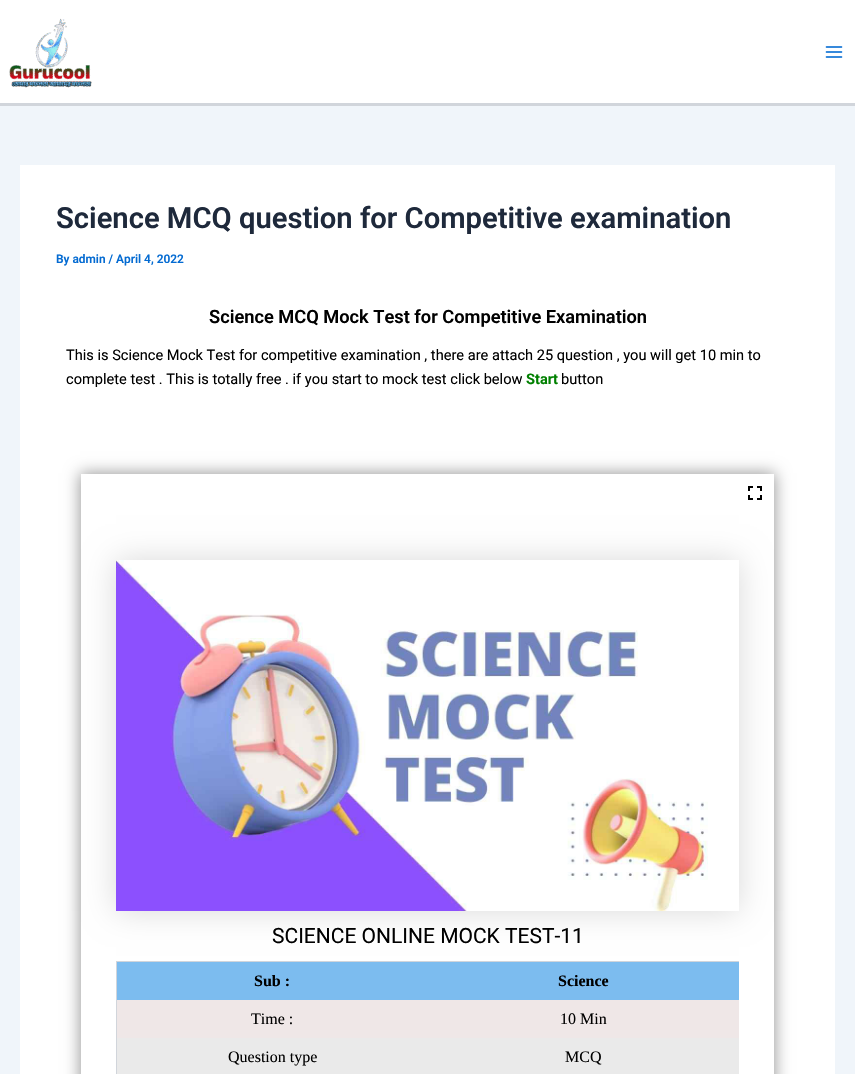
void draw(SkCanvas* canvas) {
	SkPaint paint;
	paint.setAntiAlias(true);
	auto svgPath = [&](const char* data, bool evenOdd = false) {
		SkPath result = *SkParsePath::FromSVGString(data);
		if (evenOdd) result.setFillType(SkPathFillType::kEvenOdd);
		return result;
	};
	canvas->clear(0xfff0f5fa);
	paint.setColor(0xffffffff);
	canvas->drawRect(SkRect::MakeXYWH(0, 0, 855, 103), paint);
	paint.setColor(0xffd1d5db);
	canvas->drawRect(SkRect::MakeXYWH(0, 103, 855, 3), paint);
	canvas->drawImageRect(SkImages::DeferredFromEncodedData(SkData::MakeFromFileName("img1.png")), SkRect::MakeXYWH(9, 18, 83, 70), SkSamplingOptions());
	canvas->drawImageRect(SkImages::DeferredFromEncodedData(SkData::MakeFromFileName("img2.png")), SkRect::MakeXYWH(825, 46, 18, 12), SkSamplingOptions());
	paint.setColor(0xffffffff);
	canvas->drawRect(SkRect::MakeXYWH(20, 165, 815, 909), paint);
	SkFont f1(fontMgr->matchFamilyStyle("Roboto", SkFontStyle(600, SkFontStyle::kNormal_Width, SkFontStyle::kUpright_Slant)), 29.2);
	f1.setSubpixel(true);
	paint.setColor(0xff1e293b);
	canvas->drawString("Science MCQ question for Competitive examination", 56, 228, f1, paint);
	SkFont f2(fontMgr->matchFamilyStyle("Roboto", SkFontStyle(600, SkFontStyle::kNormal_Width, SkFontStyle::kUpright_Slant)), 11.9);
	f2.setSubpixel(true);
	paint.setColor(0xff046bd2);
	canvas->drawString("By admin / April 4, 2022", 56, 263, f2, paint);
	SkFont f3(fontMgr->matchFamilyStyle("Roboto", SkFontStyle(600, SkFontStyle::kNormal_Width, SkFontStyle::kUpright_Slant)), 18.25);
	f3.setSubpixel(true);
	paint.setColor(0xff000000);
	canvas->drawString("Science MCQ Mock Test for Competitive Examination", 209, 323, f3, paint);
	SkFont f4(fontMgr->matchFamilyStyle("Roboto", SkFontStyle::Normal()), 14.6);
	f4.setSubpixel(true);
	canvas->drawString("This is Science Mock Test for competitive examination , there are attach 25 question , you will get 10 min to", 66, 360, f4, paint);
	canvas->drawString("complete test . This is totally free . if you start to mock test click below", 66, 384, f4, paint);
	SkFont f5(fontMgr->matchFamilyStyle("Roboto", SkFontStyle::Bold()), 14.6);
	f5.setSubpixel(true);
	paint.setColor(0xff008000);
	canvas->drawString("Start", 526, 384, f5, paint);
	paint.setColor(0xff000000);
	canvas->drawString("button", 561, 384, f4, paint);
	canvas->save();
	canvas->clipPath(svgPath("M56 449H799V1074H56ZM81 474H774V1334H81Z", true), true);
	paint.setColor(0x66000000);
	paint.setMaskFilter(SkMaskFilter::MakeBlur(kNormal_SkBlurStyle, 7.5));
	canvas->drawRect(SkRect::MakeXYWH(80, 473, 695, 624), paint);
	paint.setMaskFilter(nullptr);
	canvas->restore();
	canvas->drawImageRect(SkImages::DeferredFromEncodedData(SkData::MakeFromFileName("img3.png")), SkRect::MakeXYWH(748, 486, 14, 14), SkSamplingOptions());
	canvas->save();
	canvas->clipPath(svgPath("M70 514H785V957H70ZM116 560H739V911H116Z", true), true);
	paint.setColor(0x26000000);
	paint.setMaskFilter(SkMaskFilter::MakeBlur(kNormal_SkBlurStyle, 15));
	canvas->drawRect(SkRect::MakeXYWH(116, 560, 623, 351), paint);
	paint.setMaskFilter(nullptr);
	canvas->restore();
	canvas->drawImageRect(SkImages::DeferredFromEncodedData(SkData::MakeFromFileName("img4.png")), SkRect::MakeXYWH(116, 560, 592, 351), SkSamplingOptions());
	SkFont f6(fontMgr->matchFamilyStyle("Roboto", SkFontStyle::Normal()), 21);
	f6.setSubpixel(true);
	paint.setColor(0xff000000);
	canvas->drawString("SCIENCE ONLINE MOCK TEST-11", 272, 943, f6, paint);
	paint.setColor(0xffd1d5db);
	canvas->drawRect(SkRect::MakeXYWH(116, 961, 623, 1), paint);
	canvas->drawRect(SkRect::MakeXYWH(116, 961, 1, 113), paint);
	paint.setColor(0xff7cbcef);
	canvas->drawRect(SkRect::MakeXYWH(117, 962, 622, 38), paint);
	SkFont f7(fontMgr->matchFamilyStyle("Liberation Serif", SkFontStyle::Bold()), 16);
	f7.setSubpixel(true);
	paint.setColor(0xff000000);
	canvas->drawString("Sub :", 254, 986, f7, paint);
	canvas->drawString("Science", 558, 986, f7, paint);
	paint.setColor(0xffefe7e7);
	canvas->drawRect(SkRect::MakeXYWH(117, 1000, 622, 38), paint);
	SkFont f8(fontMgr->matchFamilyStyle("Liberation Serif", SkFontStyle::Normal()), 16);
	f8.setSubpixel(true);
	paint.setColor(0xff000000);
	canvas->drawString("Time :", 251, 1024, f8, paint);
	canvas->drawString("10 Min", 560, 1024, f8, paint);
	paint.setColor(0xffeaeaea);
	canvas->drawRect(SkRect::MakeXYWH(117, 1038, 622, 36), paint);
	paint.setColor(0xff000000);
	canvas->drawString("Question type", 228, 1062, f8, paint);
	canvas->drawString("MCQ", 565, 1062, f8, paint);
}
